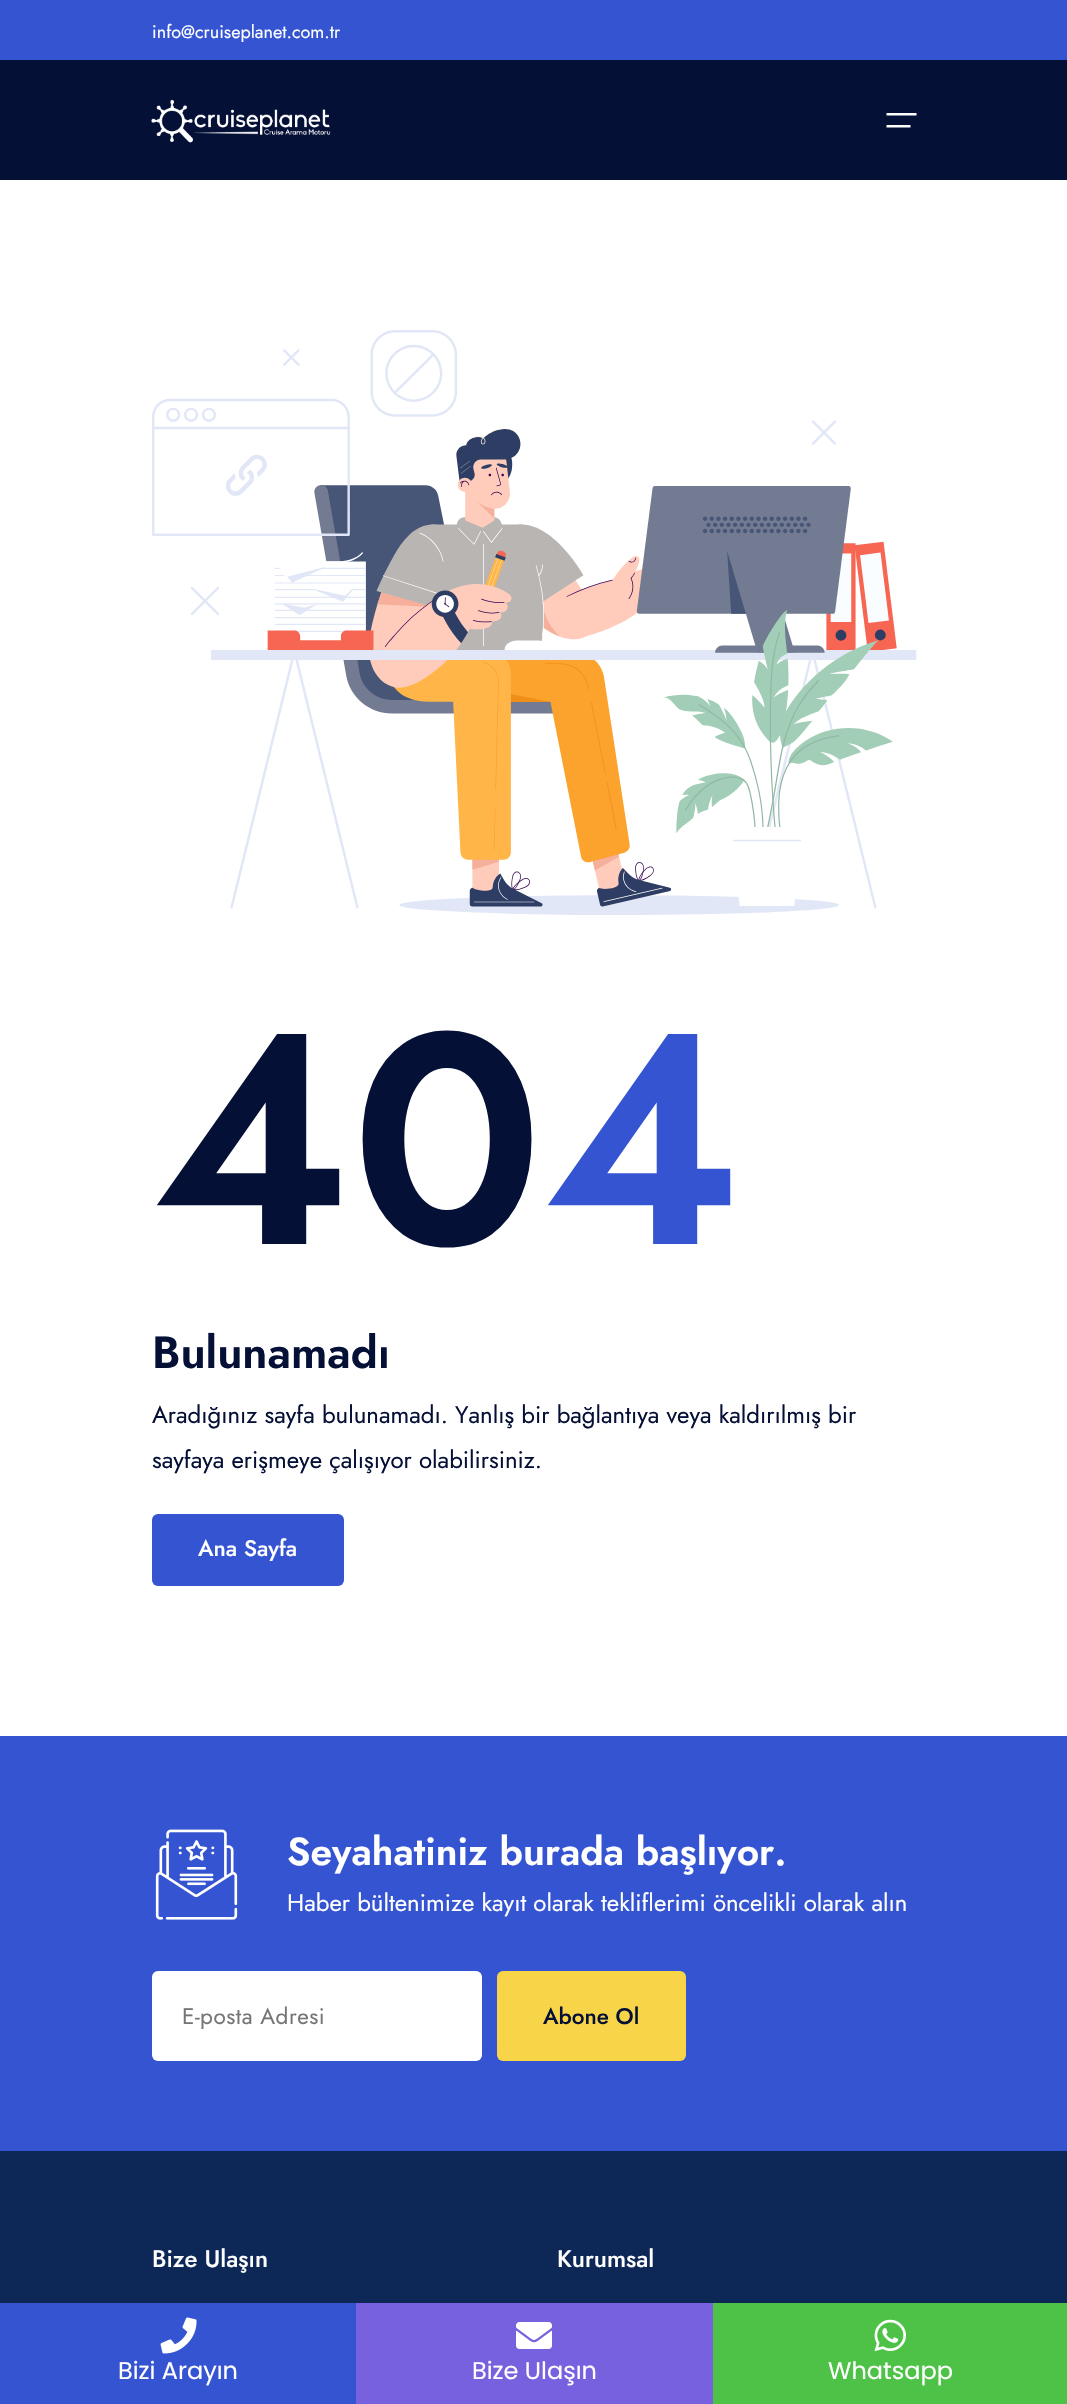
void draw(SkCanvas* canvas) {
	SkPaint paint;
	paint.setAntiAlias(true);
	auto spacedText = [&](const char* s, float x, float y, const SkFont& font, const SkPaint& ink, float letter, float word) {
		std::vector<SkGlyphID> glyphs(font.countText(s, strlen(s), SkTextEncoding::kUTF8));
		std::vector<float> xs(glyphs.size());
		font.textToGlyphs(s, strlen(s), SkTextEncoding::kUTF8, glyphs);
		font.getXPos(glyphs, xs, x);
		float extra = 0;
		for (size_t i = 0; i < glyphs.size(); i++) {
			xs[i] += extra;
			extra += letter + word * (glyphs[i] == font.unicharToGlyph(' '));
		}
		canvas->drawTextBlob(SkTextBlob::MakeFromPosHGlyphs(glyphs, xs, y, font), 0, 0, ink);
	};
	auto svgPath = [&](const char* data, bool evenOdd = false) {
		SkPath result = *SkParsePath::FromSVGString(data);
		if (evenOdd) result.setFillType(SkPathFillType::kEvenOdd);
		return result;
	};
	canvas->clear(0xffffffff);
	paint.setColor(0xff3554d1);
	canvas->drawRect(SkRect::MakeXYWH(0, 0, 1067, 60), paint);
	SkFont f1(fontMgr->matchFamilyStyle("Jost", SkFontStyle::Normal()), 18);
	f1.setSubpixel(true);
	paint.setColor(0xffffffff);
	canvas->drawString("info@cruiseplanet.com.tr", 152, 38, f1, paint);
	paint.setColor(0xff051036);
	canvas->drawRect(SkRect::MakeXYWH(0, 60, 1067, 120), paint);
	canvas->drawImageRect(SkImages::DeferredFromEncodedData(SkData::MakeFromFileName("img1.png")), SkRect::MakeXYWH(151, 99, 180, 44), SkSamplingOptions());
	paint.setColor(0xffffffff);
	canvas->drawPath(svgPath("M886.5 113H916.5V115.5H886.5ZM886.5 125H910.5V127.5H886.5Z"), paint);
	canvas->drawImageRect(SkImages::DeferredFromEncodedData(SkData::MakeFromFileName("img2.png")), SkRect::MakeXYWH(152, 330, 765, 585), SkSamplingOptions());
	SkFont f2(fontMgr->matchFamilyStyle("Jost", SkFontStyle(600, SkFontStyle::kNormal_Width, SkFontStyle::kUpright_Slant)), 300);
	f2.setSubpixel(true);
	paint.setColor(0xff051036);
	canvas->drawString("40", 152, 1244, f2, paint);
	paint.setColor(0xff3554d1);
	canvas->drawString("4", 543, 1244, f2, paint);
	SkFont f3(fontMgr->matchFamilyStyle("Jost", SkFontStyle(600, SkFontStyle::kNormal_Width, SkFontStyle::kUpright_Slant)), 45);
	f3.setSubpixel(true);
	paint.setColor(0xff051036);
	canvas->drawString("Bulunamadı", 152, 1368, f3, paint);
	SkFont f4(fontMgr->matchFamilyStyle("Jost", SkFontStyle::Normal()), 24);
	f4.setSubpixel(true);
	canvas->drawString("Aradığınız sayfa bulunamadı. Yanlış bir bağlantıya veya kaldırılmış bir", 152, 1423, f4, paint);
	canvas->drawString("sayfaya erişmeye çalışıyor olabilirsiniz.", 152, 1468, f4, paint);
	paint.setColor(0xff3554d1);
	canvas->drawRoundRect(SkRect::MakeXYWH(152, 1514, 192, 72), 6, 6, paint);
	SkFont f5(fontMgr->matchFamilyStyle("Jost", SkFontStyle(500, SkFontStyle::kNormal_Width, SkFontStyle::kUpright_Slant)), 22.5);
	f5.setSubpixel(true);
	paint.setColor(0xffffffff);
	canvas->drawString("Ana Sayfa", 198, 1556, f5, paint);
	paint.setColor(0xff3554d1);
	canvas->drawRect(SkRect::MakeXYWH(0, 1736, 1067, 415), paint);
	canvas->drawImageRect(SkImages::DeferredFromEncodedData(SkData::MakeFromFileName("img3.png")), SkRect::MakeXYWH(155, 1829, 83, 91), SkSamplingOptions());
	SkFont f6(fontMgr->matchFamilyStyle("Jost", SkFontStyle(600, SkFontStyle::kNormal_Width, SkFontStyle::kUpright_Slant)), 39);
	f6.setSubpixel(true);
	paint.setColor(0xffffffff);
	canvas->drawString("Seyahatiniz burada başlıyor.", 287, 1865, f6, paint);
	canvas->drawString("Haber bültenimize kayıt olarak tekliflerimi öncelikli olarak alın", 287, 1911, f4, paint);
	canvas->drawRoundRect(SkRect::MakeXYWH(152, 1971, 330, 90), 6, 6, paint);
	SkFont f7(fontMgr->matchFamilyStyle("Jost", SkFontStyle::Normal()), 22.5);
	f7.setSubpixel(true);
	paint.setColor(0xff757575);
	spacedText("E-posta Adresi", 182, 2024, f7, paint, 0.5, 0);
	paint.setColor(0xfff8d448);
	canvas->drawRoundRect(SkRect::MakeXYWH(497, 1971, 189, 90), 6, 6, paint);
	paint.setColor(0xff051036);
	canvas->drawString("Abone Ol", 543, 2024, f5, paint);
	paint.setColor(0xff0d2857);
	canvas->drawRect(SkRect::MakeXYWH(0, 2151, 1067, 152), paint);
	SkFont f8(fontMgr->matchFamilyStyle("Jost", SkFontStyle(500, SkFontStyle::kNormal_Width, SkFontStyle::kUpright_Slant)), 24);
	f8.setSubpixel(true);
	paint.setColor(0xffffffff);
	canvas->drawString("Bize Ulaşın", 152, 2267, f8, paint);
	canvas->drawString("Kurumsal", 557, 2267, f8, paint);
	paint.setColor(0xff3554d1);
	canvas->drawRect(SkRect::MakeXYWH(0, 2303, 356, 101), paint);
	canvas->drawImageRect(SkImages::DeferredFromEncodedData(SkData::MakeFromFileName("img4.png")), SkRect::MakeXYWH(160, 2317, 37, 37), SkSamplingOptions());
	SkFont f9(fontMgr->matchFamilyStyle("Poppins", SkFontStyle::Normal()), 24);
	f9.setSubpixel(true);
	paint.setColor(0xffffffff);
	canvas->drawString("Bizi Arayın", 118, 2379, f9, paint);
	paint.setColor(0xff7761df);
	canvas->drawRect(SkRect::MakeXYWH(356, 2303, 357, 101), paint);
	canvas->drawImageRect(SkImages::DeferredFromEncodedData(SkData::MakeFromFileName("img5.png")), SkRect::MakeXYWH(516, 2322, 36, 27), SkSamplingOptions());
	paint.setColor(0xffffffff);
	canvas->drawString("Bize Ulaşın", 472, 2379, f9, paint);
	paint.setColor(0xff4dc247);
	canvas->drawRect(SkRect::MakeXYWH(713, 2303, 354, 101), paint);
	canvas->drawImageRect(SkImages::DeferredFromEncodedData(SkData::MakeFromFileName("img6.png")), SkRect::MakeXYWH(874, 2319, 32, 33), SkSamplingOptions());
	paint.setColor(0xffffffff);
	canvas->drawString("Whatsapp", 828, 2379, f9, paint);
}
